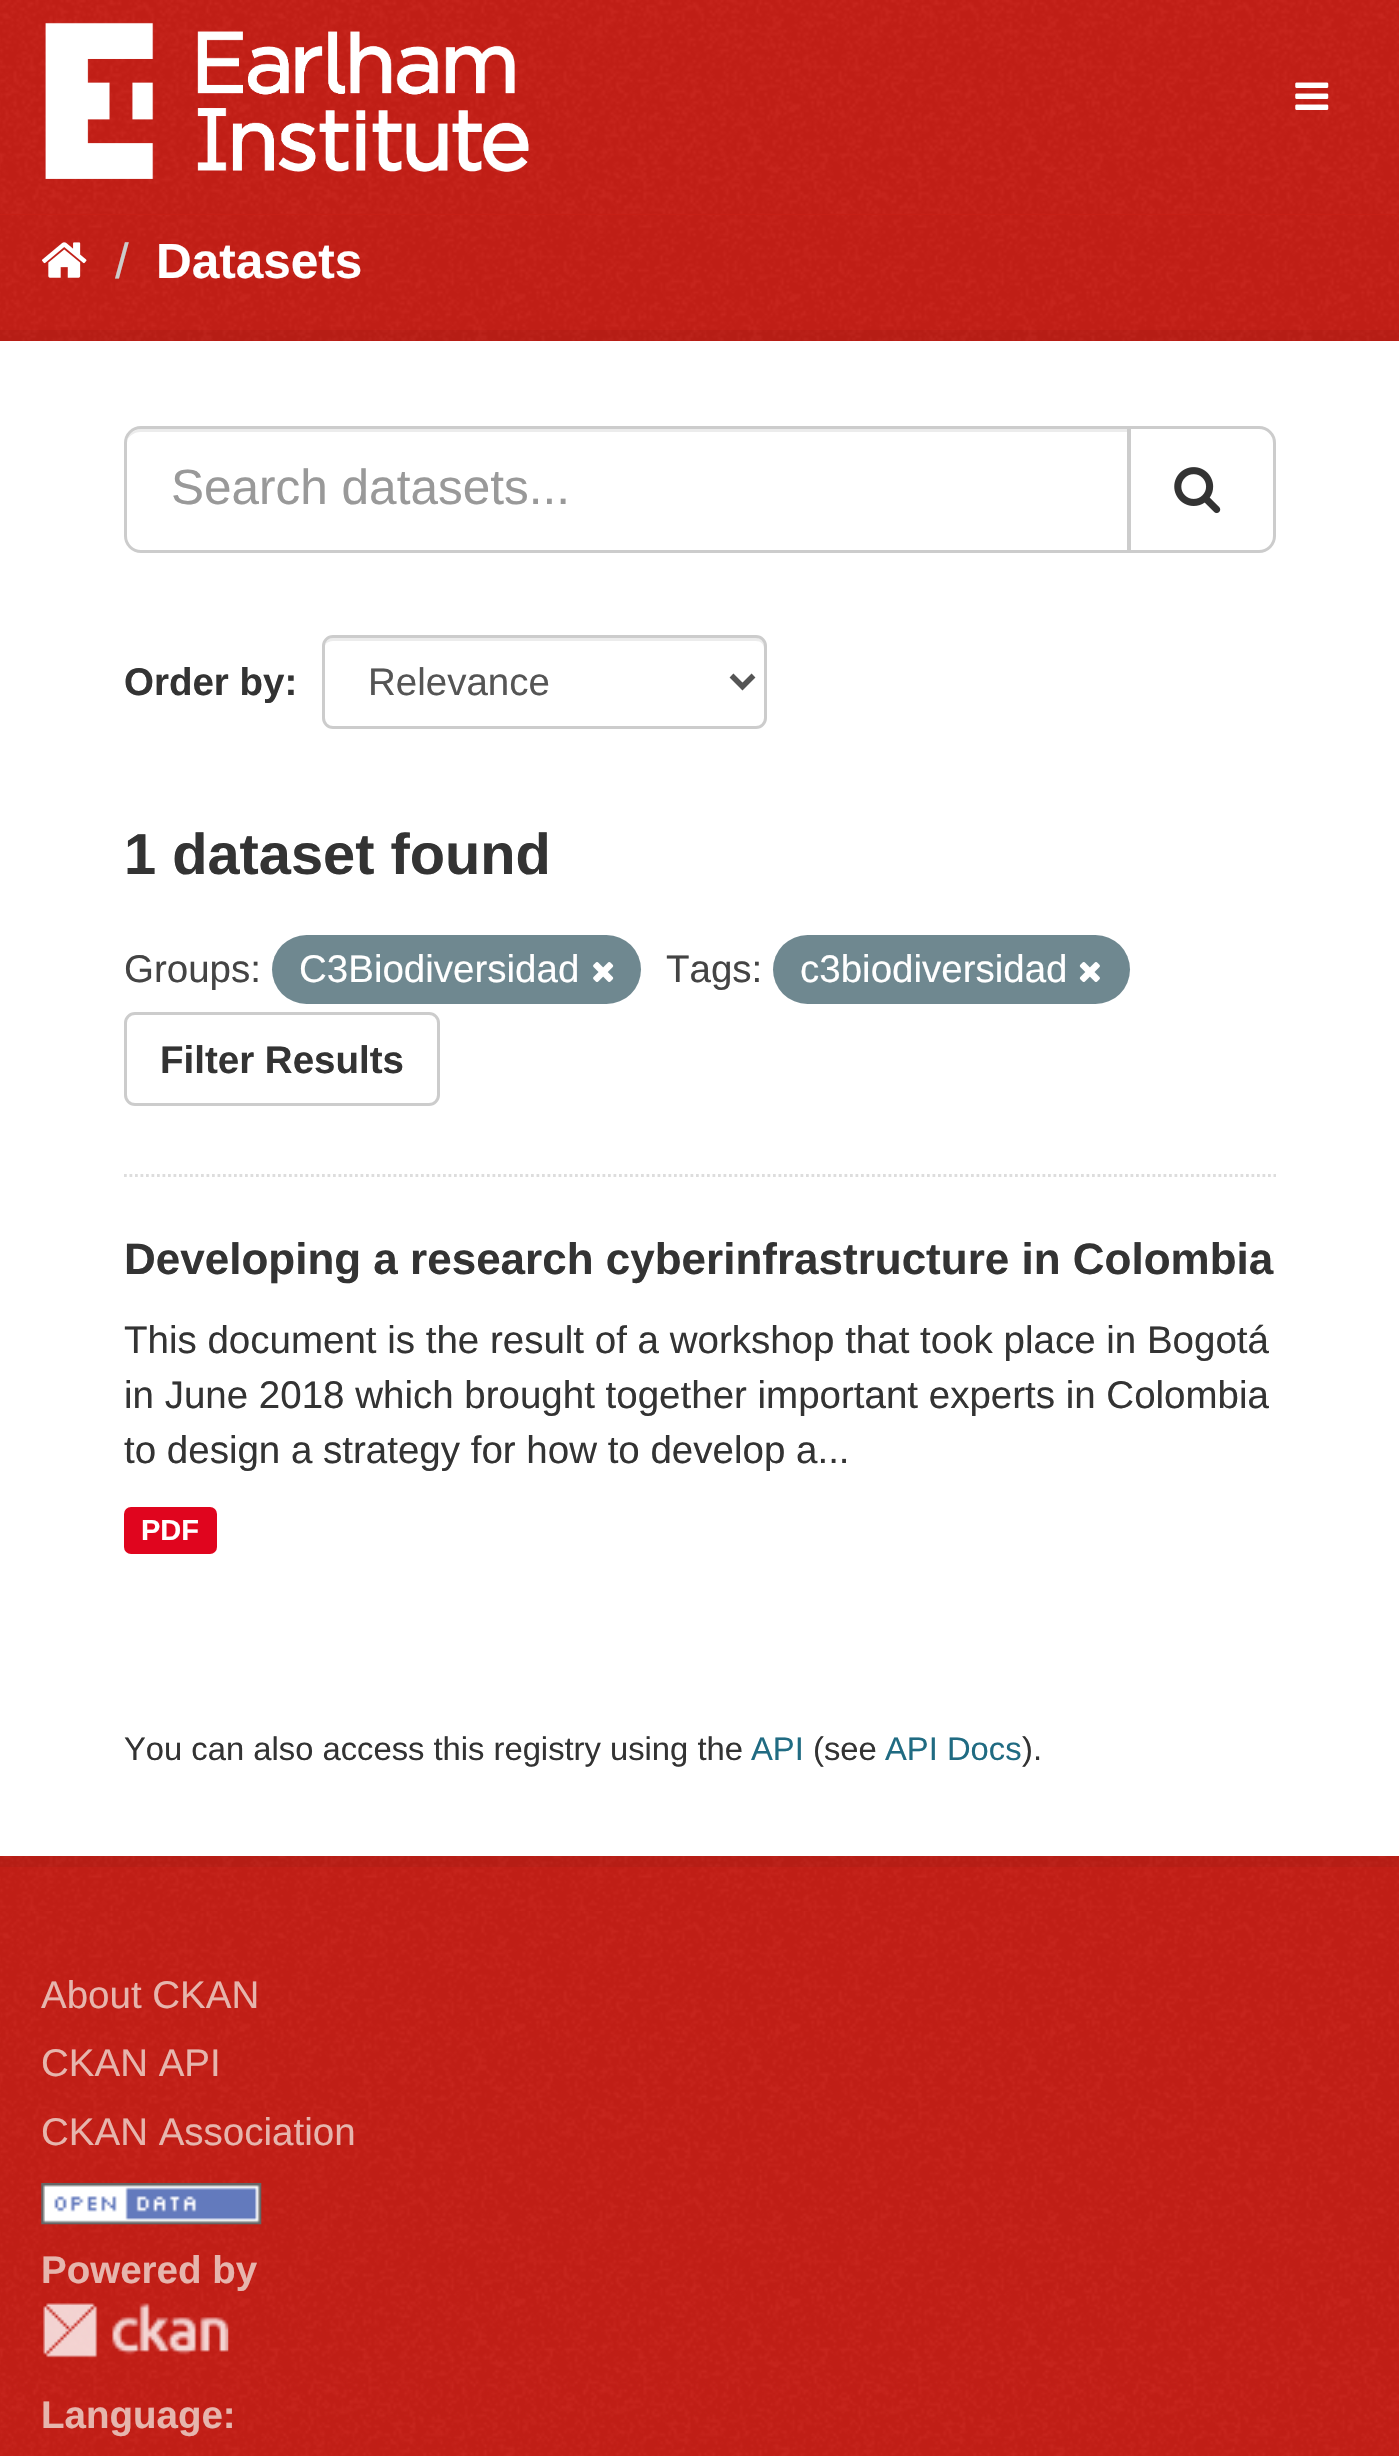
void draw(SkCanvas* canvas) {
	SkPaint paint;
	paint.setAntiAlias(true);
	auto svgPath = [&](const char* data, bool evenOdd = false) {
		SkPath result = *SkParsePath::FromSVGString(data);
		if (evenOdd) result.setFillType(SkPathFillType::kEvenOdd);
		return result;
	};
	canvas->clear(0xffc61f16);
	canvas->drawImageRect(SkImages::DeferredFromEncodedData(SkData::MakeFromFileName("img1.png")), SkRect::MakeXYWH(0, 215, 1399, 1696), SkSamplingOptions());
	canvas->drawImageRect(SkImages::DeferredFromEncodedData(SkData::MakeFromFileName("img2.png")), SkRect::MakeXYWH(0, 0, 1399, 214), SkSamplingOptions());
	canvas->drawImageRect(SkImages::DeferredFromEncodedData(SkData::MakeFromFileName("img3.png")), SkRect::MakeXYWH(45, 22, 484, 157), SkSamplingOptions());
	canvas->drawImageRect(SkImages::DeferredFromEncodedData(SkData::MakeFromFileName("img4.png")), SkRect::MakeXYWH(1295, 82, 34, 28), SkSamplingOptions());
	canvas->drawImageRect(SkImages::DeferredFromEncodedData(SkData::MakeFromFileName("img5.png")), SkRect::MakeXYWH(42, 242, 45, 36), SkSamplingOptions());
	SkFont f1(fontMgr->matchFamilyStyle("Liberation Sans", SkFontStyle::Normal()), 49.5);
	f1.setSubpixel(true);
	paint.setColor(0xffcccccc);
	canvas->drawString("/", 115, 278, f1, paint);
	SkFont f2(fontMgr->matchFamilyStyle("Liberation Sans", SkFontStyle::Bold()), 49.5);
	f2.setSubpixel(true);
	paint.setColor(0xffffffff);
	canvas->drawString("Datasets", 156, 278, f2, paint);
	paint.setStroke(true);
	paint.setStrokeWidth(11);
	paint.setColor(0x0d000000);
	canvas->drawRect(SkRect::MakeXYWH(-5.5, 335.5, 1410, 1526), paint);
	paint.setStroke(false);
	paint.setColor(0xffffffff);
	canvas->drawRect(SkRect::MakeXYWH(0, 341, 1399, 1515), paint);
	paint.setStroke(true);
	paint.setStrokeWidth(2.8);
	paint.setColor(0xffdddddd);
	paint.setPathEffect(SkDashPathEffect::Make({{2.75f, 2.75f}}, 0));
	canvas->drawPath(svgPath("M124 1175.5H1276"), paint);
	paint.setPathEffect(nullptr);
	paint.setStroke(false);
	paint.setColor(0xffececec);
	canvas->drawPath(svgPath("M140 432H1128V429H141C134 429 129 434 127 440C130 435 135 432 140 432Z"), paint);
	paint.setStroke(true);
	paint.setStrokeWidth(3);
	paint.setColor(0xffcccccc);
	canvas->drawPath(svgPath("M141 427.5H1128.5V551.5H141C132.5 551.5 125.5 544.5 125.5 536V443C125.5 434.5 132.5 427.5 141 427.5Z"), paint);
	paint.setStroke(false);
	paint.setColor(0xff999999);
	canvas->drawString("Search datasets...", 171, 504, f1, paint);
	paint.setColor(0xffffffff);
	canvas->drawPath(svgPath("M1129.5 427.5H1259C1267.5 427.5 1274.5 434.5 1274.5 443V536C1274.5 544.5 1267.5 551.5 1259 551.5H1129.5Z"), paint);
	paint.setStroke(true);
	paint.setColor(0xffcccccc);
	canvas->drawPath(svgPath("M1129.5 427.5H1259C1267.5 427.5 1274.5 434.5 1274.5 443V536C1274.5 544.5 1267.5 551.5 1259 551.5H1129.5Z"), paint);
	canvas->drawImageRect(SkImages::DeferredFromEncodedData(SkData::MakeFromFileName("img6.png")), SkRect::MakeXYWH(1174, 467, 47, 47), SkSamplingOptions());
	SkFont f3(fontMgr->matchFamilyStyle("Liberation Sans", SkFontStyle::Bold()), 38.5);
	f3.setSubpixel(true);
	paint.setStroke(false);
	paint.setColor(0xff333333);
	canvas->drawString("Order by:", 124, 695, f3, paint);
	paint.setColor(0xffececec);
	canvas->drawPath(svgPath("M333 641H756C761 641 764 644 764 649V722C765 721 765 720 765 718V646C765 642 761 638 757 638H333C329 638 326 641 325 645C327 642 330 641 333 641Z"), paint);
	paint.setStroke(true);
	paint.setColor(0xffcccccc);
	canvas->drawRoundRect(SkRect::MakeXYWH(323.5, 636.5, 442, 91), 9.5, 9.5, paint);
	paint.setStrokeWidth(5.5);
	paint.setColor(0xff555555);
	canvas->drawPath(svgPath("M731.5 675.5L742.5 686.5L753.5 675.5"), paint);
	SkFont f4(fontMgr->matchFamilyStyle("Liberation Sans", SkFontStyle::Normal()), 38.5);
	f4.setSubpixel(true);
	paint.setStroke(false);
	canvas->drawString("Relevance", 368, 695, f4, paint);
	SkFont f5(fontMgr->matchFamilyStyle("Liberation Sans", SkFontStyle::Bold()), 57.75);
	f5.setSubpixel(true);
	paint.setColor(0xff333333);
	canvas->drawString("1 dataset found", 124, 874, f5, paint);
	paint.setColor(0xff444444);
	canvas->drawString("Groups:", 124, 982, f4, paint);
	paint.setColor(0xff6f8890);
	canvas->drawRoundRect(SkRect::MakeXYWH(272, 935, 369, 69), 34.5, 34.5, paint);
	paint.setColor(0xffffffff);
	canvas->drawString("C3Biodiversidad", 299, 982, f4, paint);
	canvas->drawImageRect(SkImages::DeferredFromEncodedData(SkData::MakeFromFileName("img7.png")), SkRect::MakeXYWH(593, 962, 21, 20), SkSamplingOptions());
	paint.setColor(0xff444444);
	canvas->drawString("Tags:", 666, 982, f4, paint);
	paint.setColor(0xff6f8890);
	canvas->drawRoundRect(SkRect::MakeXYWH(773, 935, 357, 69), 34.5, 34.5, paint);
	paint.setColor(0xffffffff);
	canvas->drawString("c3biodiversidad", 800, 982, f4, paint);
	canvas->drawImageRect(SkImages::DeferredFromEncodedData(SkData::MakeFromFileName("img8.png")), SkRect::MakeXYWH(1079, 962, 21, 20), SkSamplingOptions());
	paint.setStroke(true);
	paint.setStrokeWidth(3);
	paint.setColor(0xffcccccc);
	canvas->drawRoundRect(SkRect::MakeXYWH(125.5, 1013.5, 313, 91), 9.5, 9.5, paint);
	paint.setStroke(false);
	paint.setColor(0xff333333);
	canvas->drawString("Filter Results", 160, 1073, f3, paint);
	SkFont f6(fontMgr->matchFamilyStyle("Liberation Sans", SkFontStyle::Bold()), 44);
	f6.setSubpixel(true);
	canvas->drawString("Developing a research cyberinfrastructure in Colombia", 124, 1274, f6, paint);
	canvas->drawString("This document is the result of a workshop that took place in Bogotá", 124, 1353, f4, paint);
	canvas->drawString("in June 2018 which brought together important experts in Colombia", 124, 1408, f4, paint);
	canvas->drawString("to design a strategy for how to develop a...", 124, 1463, f4, paint);
	paint.setColor(0xffe0051e);
	canvas->drawRoundRect(SkRect::MakeXYWH(124, 1507, 93, 47), 7, 7, paint);
	SkFont f7(fontMgr->matchFamilyStyle("Liberation Sans", SkFontStyle::Bold()), 29);
	f7.setSubpixel(true);
	paint.setColor(0xffffffff);
	canvas->drawString("PDF", 141, 1540, f7, paint);
	SkFont f8(fontMgr->matchFamilyStyle("Liberation Sans", SkFontStyle::Normal()), 32.75);
	f8.setSubpixel(true);
	paint.setColor(0xff333333);
	canvas->drawString("You can also access this registry using the", 124, 1760, f8, paint);
	paint.setColor(0xff206b82);
	canvas->drawString("API", 751, 1760, f8, paint);
	paint.setColor(0xff333333);
	canvas->drawString("(see", 813, 1760, f8, paint);
	paint.setColor(0xff206b82);
	canvas->drawString("API Docs", 885, 1760, f8, paint);
	paint.setColor(0xff333333);
	canvas->drawString(").", 1022, 1760, f8, paint);
	canvas->drawImageRect(SkImages::DeferredFromEncodedData(SkData::MakeFromFileName("img9.png")), SkRect::MakeXYWH(0, 1911, 1399, 545), SkSamplingOptions());
	paint.setColor(0xffe6b5ad);
	canvas->drawString("About CKAN", 41, 2008, f4, paint);
	canvas->drawString("CKAN API", 41, 2076, f4, paint);
	canvas->drawString("CKAN Association", 41, 2145, f4, paint);
	canvas->drawImageRect(SkImages::DeferredFromEncodedData(SkData::MakeFromFileName("img10.png")), SkRect::MakeXYWH(41, 2183, 221, 42), SkSamplingOptions());
	canvas->drawString("Powered by", 41, 2283, f3, paint);
	canvas->drawImageRect(SkImages::DeferredFromEncodedData(SkData::MakeFromFileName("img11.png")), SkRect::MakeXYWH(43, 2303, 186, 55), SkSamplingOptions());
	canvas->drawString("Language:", 41, 2428, f3, paint);
}
